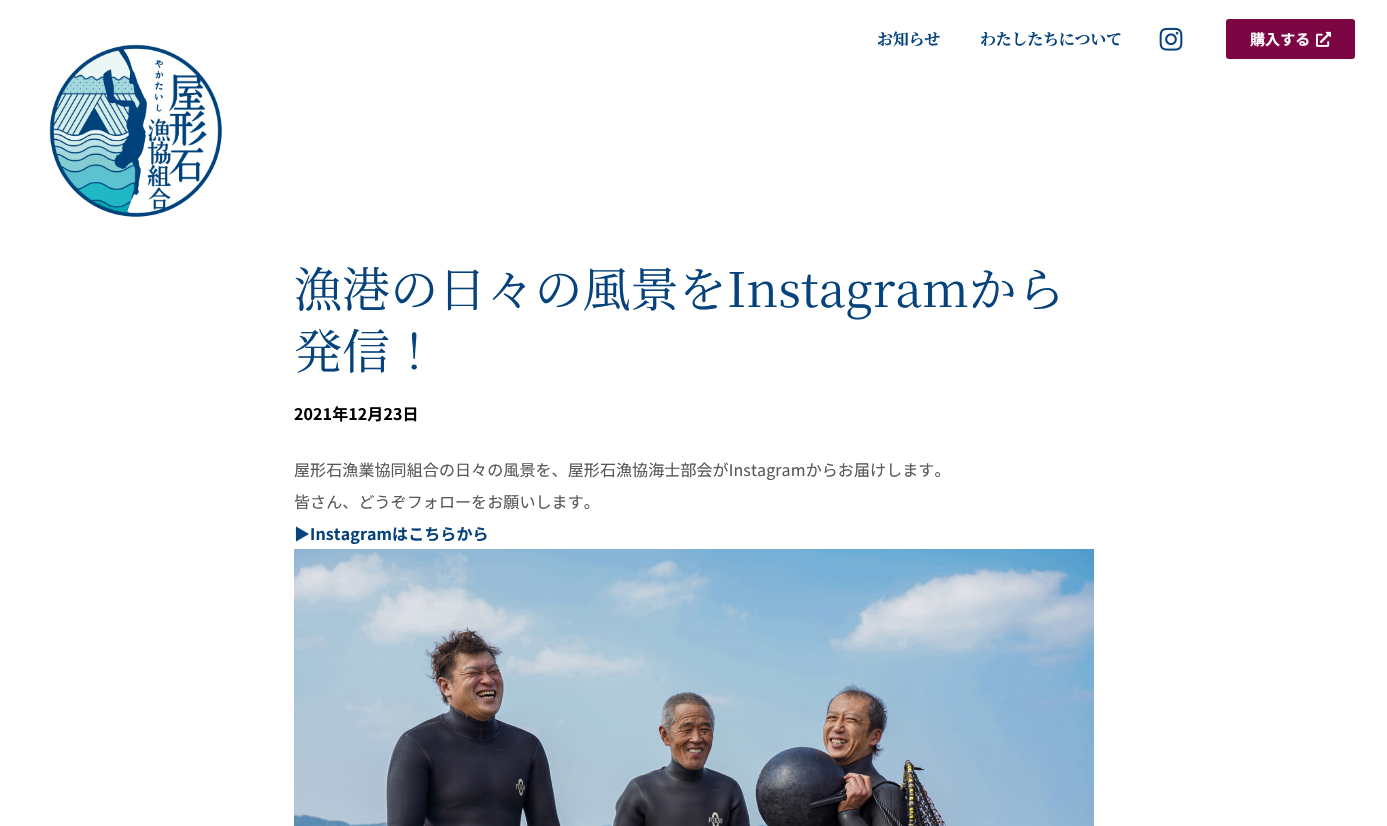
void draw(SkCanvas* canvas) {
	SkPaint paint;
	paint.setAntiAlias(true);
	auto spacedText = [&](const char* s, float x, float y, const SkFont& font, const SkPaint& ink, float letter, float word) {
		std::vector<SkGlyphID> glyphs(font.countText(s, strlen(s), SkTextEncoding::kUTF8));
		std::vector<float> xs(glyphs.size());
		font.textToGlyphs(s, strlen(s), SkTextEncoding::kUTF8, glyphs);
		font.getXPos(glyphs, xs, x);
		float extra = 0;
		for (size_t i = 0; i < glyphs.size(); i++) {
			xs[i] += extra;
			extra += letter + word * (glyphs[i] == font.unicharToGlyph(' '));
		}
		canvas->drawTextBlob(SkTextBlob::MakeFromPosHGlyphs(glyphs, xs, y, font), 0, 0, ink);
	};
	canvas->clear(0xffffffff);
	SkFont f1(fontMgr->matchFamilyStyle("Noto Serif JP", SkFontStyle::Bold()), 16);
	f1.setSubpixel(true);
	paint.setColor(0xff06437c);
	spacedText("お知らせ", 877, 45, f1, paint, -0.25, 0);
	spacedText("わたしたちについて", 980, 45, f1, paint, -0.25, 0);
	canvas->drawImageRect(SkImages::DeferredFromEncodedData(SkData::MakeFromFileName("img1.png")), SkRect::MakeXYWH(1159, 27, 24, 24), SkSamplingOptions());
	paint.setColor(0xff7c0543);
	canvas->drawRoundRect(SkRect::MakeXYWH(1226, 19, 129, 40), 3, 3, paint);
	SkFont f2(fontMgr->matchFamilyStyle("Noto Sans JP", SkFontStyle::Bold()), 15);
	f2.setSubpixel(true);
	paint.setColor(0xffffffff);
	spacedText("購入する", 1250, 45, f2, paint, 0.1, 0);
	canvas->drawImageRect(SkImages::DeferredFromEncodedData(SkData::MakeFromFileName("img2.png")), SkRect::MakeXYWH(1316, 31, 15, 16), SkSamplingOptions());
	canvas->drawImageRect(SkImages::DeferredFromEncodedData(SkData::MakeFromFileName("img3.png")), SkRect::MakeXYWH(49, 44, 173, 173), SkSamplingOptions());
	SkFont f3(fontMgr->matchFamilyStyle("Noto Serif JP", SkFontStyle::Normal()), 48);
	f3.setSubpixel(true);
	paint.setColor(0xff06437c);
	spacedText("漁港の日々の風景をInstagramから", 294, 307, f3, paint, 0.1, 0);
	spacedText("発信！", 294, 369, f3, paint, 0.1, 0);
	SkFont f4(fontMgr->matchFamilyStyle("Noto Sans JP", SkFontStyle::Bold()), 16);
	f4.setSubpixel(true);
	paint.setColor(0xff000000);
	spacedText("2021年12月23日", 294, 420, f4, paint, 0.1, 0);
	SkFont f5(fontMgr->matchFamilyStyle("Noto Sans JP", SkFontStyle::Normal()), 16);
	f5.setSubpixel(true);
	paint.setColor(0xff585858);
	spacedText("屋形石漁業協同組合の日々の風景を、屋形石漁協海士部会がInstagramからお届けします。", 294, 476, f5, paint, 0.1, 0);
	spacedText("皆さん、どうぞフォローをお願いします。", 294, 508, f5, paint, 0.1, 0);
	paint.setColor(0xff06437c);
	spacedText("▶Instagramはこちらから", 294, 540, f4, paint, 0.1, 0);
	canvas->drawImageRect(SkImages::DeferredFromEncodedData(SkData::MakeFromFileName("img4.png")), SkRect::MakeXYWH(294, 549, 800, 277), SkSamplingOptions());
}
